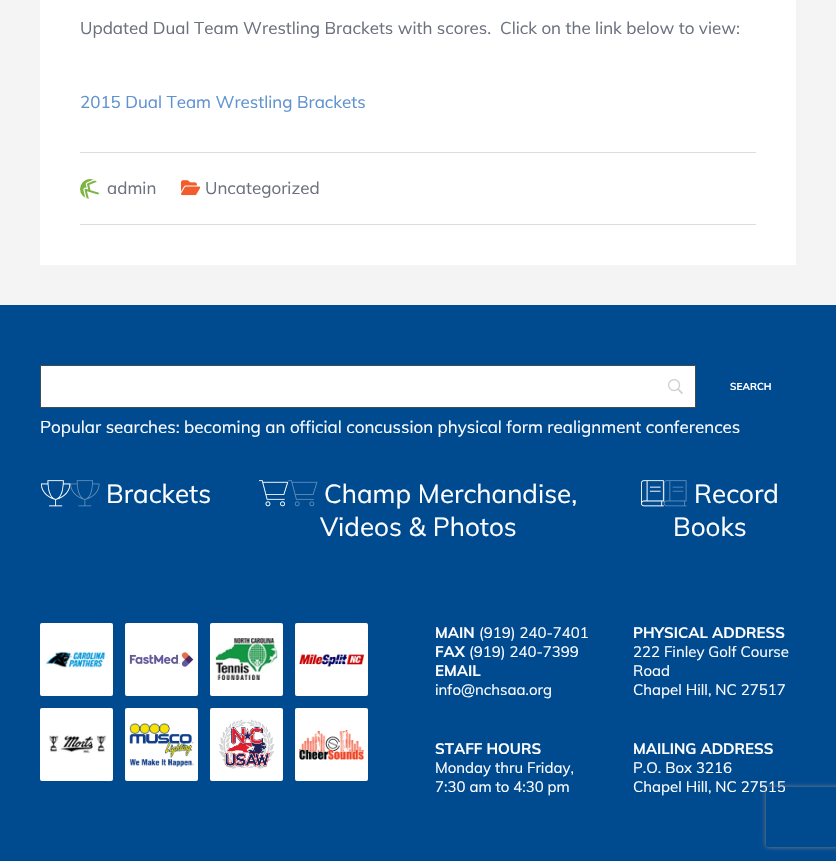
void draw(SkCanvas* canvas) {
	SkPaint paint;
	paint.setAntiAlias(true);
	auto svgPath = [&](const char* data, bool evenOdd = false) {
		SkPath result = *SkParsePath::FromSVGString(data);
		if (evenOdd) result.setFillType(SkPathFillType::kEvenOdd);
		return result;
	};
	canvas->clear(0xfff4f4f4);
	paint.setColor(0xffffffff);
	canvas->drawRect(SkRect::MakeXYWH(40, 0, 756, 265), paint);
	SkFont f1(fontMgr->matchFamilyStyle("Muli", SkFontStyle::Normal()), 17);
	f1.setSubpixel(true);
	paint.setColor(0xff6b717e);
	canvas->drawString("Updated Dual Team Wrestling Brackets with scores.  Click on the link below to view:", 80, 34, f1, paint);
	paint.setColor(0xff5e92d1);
	canvas->drawString("2015 Dual Team Wrestling Brackets", 80, 108, f1, paint);
	paint.setColor(0xffdddddd);
	canvas->drawRect(SkRect::MakeXYWH(80, 152, 676, 1), paint);
	canvas->drawRect(SkRect::MakeXYWH(80, 224, 676, 1), paint);
	canvas->drawImageRect(SkImages::DeferredFromEncodedData(SkData::MakeFromFileName("img1.png")), SkRect::MakeXYWH(80, 179, 20, 20), SkSamplingOptions());
	paint.setColor(0xff6b717e);
	canvas->drawString("admin", 107, 194, f1, paint);
	canvas->drawImageRect(SkImages::DeferredFromEncodedData(SkData::MakeFromFileName("img2.png")), SkRect::MakeXYWH(181, 180, 20, 16), SkSamplingOptions());
	canvas->drawString("Uncategorized", 205, 194, f1, paint);
	paint.setColor(0xff004a90);
	canvas->drawRect(SkRect::MakeXYWH(0, 305, 836, 556), paint);
	paint.setColor(0xffffffff);
	canvas->drawRect(SkRect::MakeXYWH(41, 366, 654, 41), paint);
	canvas->drawImageRect(SkImages::DeferredFromEncodedData(SkData::MakeFromFileName("img3.png")), SkRect::MakeXYWH(668, 379, 15, 15), SkSamplingOptions());
	paint.setStroke(true);
	paint.setStrokeWidth(1);
	paint.setColor(0xff3e4d4d);
	canvas->drawRect(SkRect::MakeXYWH(40.5, 365.5, 655, 42), paint);
	SkFont f2(fontMgr->matchFamilyStyle("Muli", SkFontStyle::Bold()), 10);
	f2.setSubpixel(true);
	paint.setStroke(false);
	paint.setColor(0xffffffff);
	canvas->drawString("SEARCH", 730, 390, f2, paint);
	canvas->drawString("Popular searches: becoming an official concussion physical form realignment conferences", 40, 433, f1, paint);
	canvas->drawImageRect(SkImages::DeferredFromEncodedData(SkData::MakeFromFileName("img4.png")), SkRect::MakeXYWH(41, 480, 30, 27), SkSamplingOptions());
	canvas->drawImageRect(SkImages::DeferredFromEncodedData(SkData::MakeFromFileName("img5.png")), SkRect::MakeXYWH(41, 480, 59, 27), SkSamplingOptions());
	SkFont f3(fontMgr->matchFamilyStyle("Muli", SkFontStyle::Normal()), 26);
	f3.setSubpixel(true);
	canvas->drawString("Brackets", 106, 503, f3, paint);
	canvas->drawImageRect(SkImages::DeferredFromEncodedData(SkData::MakeFromFileName("img6.png")), SkRect::MakeXYWH(259, 480, 30, 27), SkSamplingOptions());
	canvas->drawImageRect(SkImages::DeferredFromEncodedData(SkData::MakeFromFileName("img7.png")), SkRect::MakeXYWH(259, 480, 59, 27), SkSamplingOptions());
	canvas->drawString("Champ Merchandise,", 324, 503, f3, paint);
	canvas->drawString("Videos & Photos", 320, 536, f3, paint);
	canvas->drawImageRect(SkImages::DeferredFromEncodedData(SkData::MakeFromFileName("img8.png")), SkRect::MakeXYWH(641, 480, 23, 27), SkSamplingOptions());
	canvas->drawImageRect(SkImages::DeferredFromEncodedData(SkData::MakeFromFileName("img9.png")), SkRect::MakeXYWH(641, 480, 46, 27), SkSamplingOptions());
	canvas->drawString("Record", 694, 503, f3, paint);
	canvas->drawString("Books", 673, 536, f3, paint);
	canvas->drawRoundRect(SkRect::MakeXYWH(40, 623, 73, 73), 2, 2, paint);
	canvas->drawImageRect(SkImages::DeferredFromEncodedData(SkData::MakeFromFileName("img10.png")), SkRect::MakeXYWH(45, 651, 61, 17), SkSamplingOptions());
	canvas->drawRoundRect(SkRect::MakeXYWH(125, 623, 73, 73), 2, 2, paint);
	canvas->drawImageRect(SkImages::DeferredFromEncodedData(SkData::MakeFromFileName("img11.png")), SkRect::MakeXYWH(129, 650, 65, 17), SkSamplingOptions());
	canvas->drawRoundRect(SkRect::MakeXYWH(210, 623, 73, 73), 2, 2, paint);
	canvas->drawImageRect(SkImages::DeferredFromEncodedData(SkData::MakeFromFileName("img12.png")), SkRect::MakeXYWH(215, 638, 63, 42), SkSamplingOptions());
	canvas->drawRoundRect(SkRect::MakeXYWH(295, 623, 73, 73), 2, 2, paint);
	canvas->drawImageRect(SkImages::DeferredFromEncodedData(SkData::MakeFromFileName("img13.png")), SkRect::MakeXYWH(299, 654, 65, 13), SkSamplingOptions());
	canvas->drawRoundRect(SkRect::MakeXYWH(40, 708, 73, 73), 2, 2, paint);
	canvas->drawImageRect(SkImages::DeferredFromEncodedData(SkData::MakeFromFileName("img14.png")), SkRect::MakeXYWH(49, 735, 58, 19), SkSamplingOptions());
	canvas->drawRoundRect(SkRect::MakeXYWH(125, 708, 73, 73), 2, 2, paint);
	canvas->drawImageRect(SkImages::DeferredFromEncodedData(SkData::MakeFromFileName("img15.png")), SkRect::MakeXYWH(129, 723, 65, 44), SkSamplingOptions());
	canvas->drawRoundRect(SkRect::MakeXYWH(210, 708, 73, 73), 2, 2, paint);
	canvas->drawImageRect(SkImages::DeferredFromEncodedData(SkData::MakeFromFileName("img16.png")), SkRect::MakeXYWH(218, 719, 57, 50), SkSamplingOptions());
	canvas->drawRoundRect(SkRect::MakeXYWH(295, 708, 73, 73), 2, 2, paint);
	canvas->drawImageRect(SkImages::DeferredFromEncodedData(SkData::MakeFromFileName("img17.png")), SkRect::MakeXYWH(299, 730, 65, 30), SkSamplingOptions());
	SkFont f4(fontMgr->matchFamilyStyle("Muli", SkFontStyle::Bold()), 15);
	f4.setSubpixel(true);
	canvas->drawString("MAIN", 435, 638, f4, paint);
	SkFont f5(fontMgr->matchFamilyStyle("Muli", SkFontStyle::Normal()), 15);
	f5.setSubpixel(true);
	canvas->drawString("(919) 240-7401", 479, 638, f5, paint);
	canvas->drawString("FAX", 435, 657, f4, paint);
	canvas->drawString("(919) 240-7399", 469, 657, f5, paint);
	canvas->drawString("EMAIL", 435, 676, f4, paint);
	canvas->drawString("info@nchsaa.org", 435, 695, f5, paint);
	canvas->drawString("PHYSICAL ADDRESS", 633, 638, f4, paint);
	canvas->drawString("222 Finley Golf Course", 633, 657, f5, paint);
	canvas->drawString("Road", 633, 676, f5, paint);
	canvas->drawString("Chapel Hill, NC 27517", 633, 695, f5, paint);
	canvas->drawString("STAFF HOURS", 435, 754, f4, paint);
	canvas->drawString("Monday thru Friday,", 435, 773, f5, paint);
	canvas->drawString("7:30 am to 4:30 pm", 435, 792, f5, paint);
	canvas->drawString("MAILING ADDRESS", 633, 754, f4, paint);
	canvas->drawString("P.O. Box 3216", 633, 773, f5, paint);
	canvas->drawString("Chapel Hill, NC 27515", 633, 792, f5, paint);
	canvas->save();
	canvas->clipPath(svgPath("M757 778H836V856H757ZM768 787H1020C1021 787 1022 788 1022 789V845C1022 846 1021 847 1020 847H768C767 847 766 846 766 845V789C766 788 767 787 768 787Z", true), true);
	paint.setColor(0xff808080);
	paint.setMaskFilter(SkMaskFilter::MakeBlur(kNormal_SkBlurStyle, 2.5));
	canvas->drawRoundRect(SkRect::MakeXYWH(766, 787, 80, 60), 2, 2, paint);
	paint.setMaskFilter(nullptr);
	canvas->restore();
}
